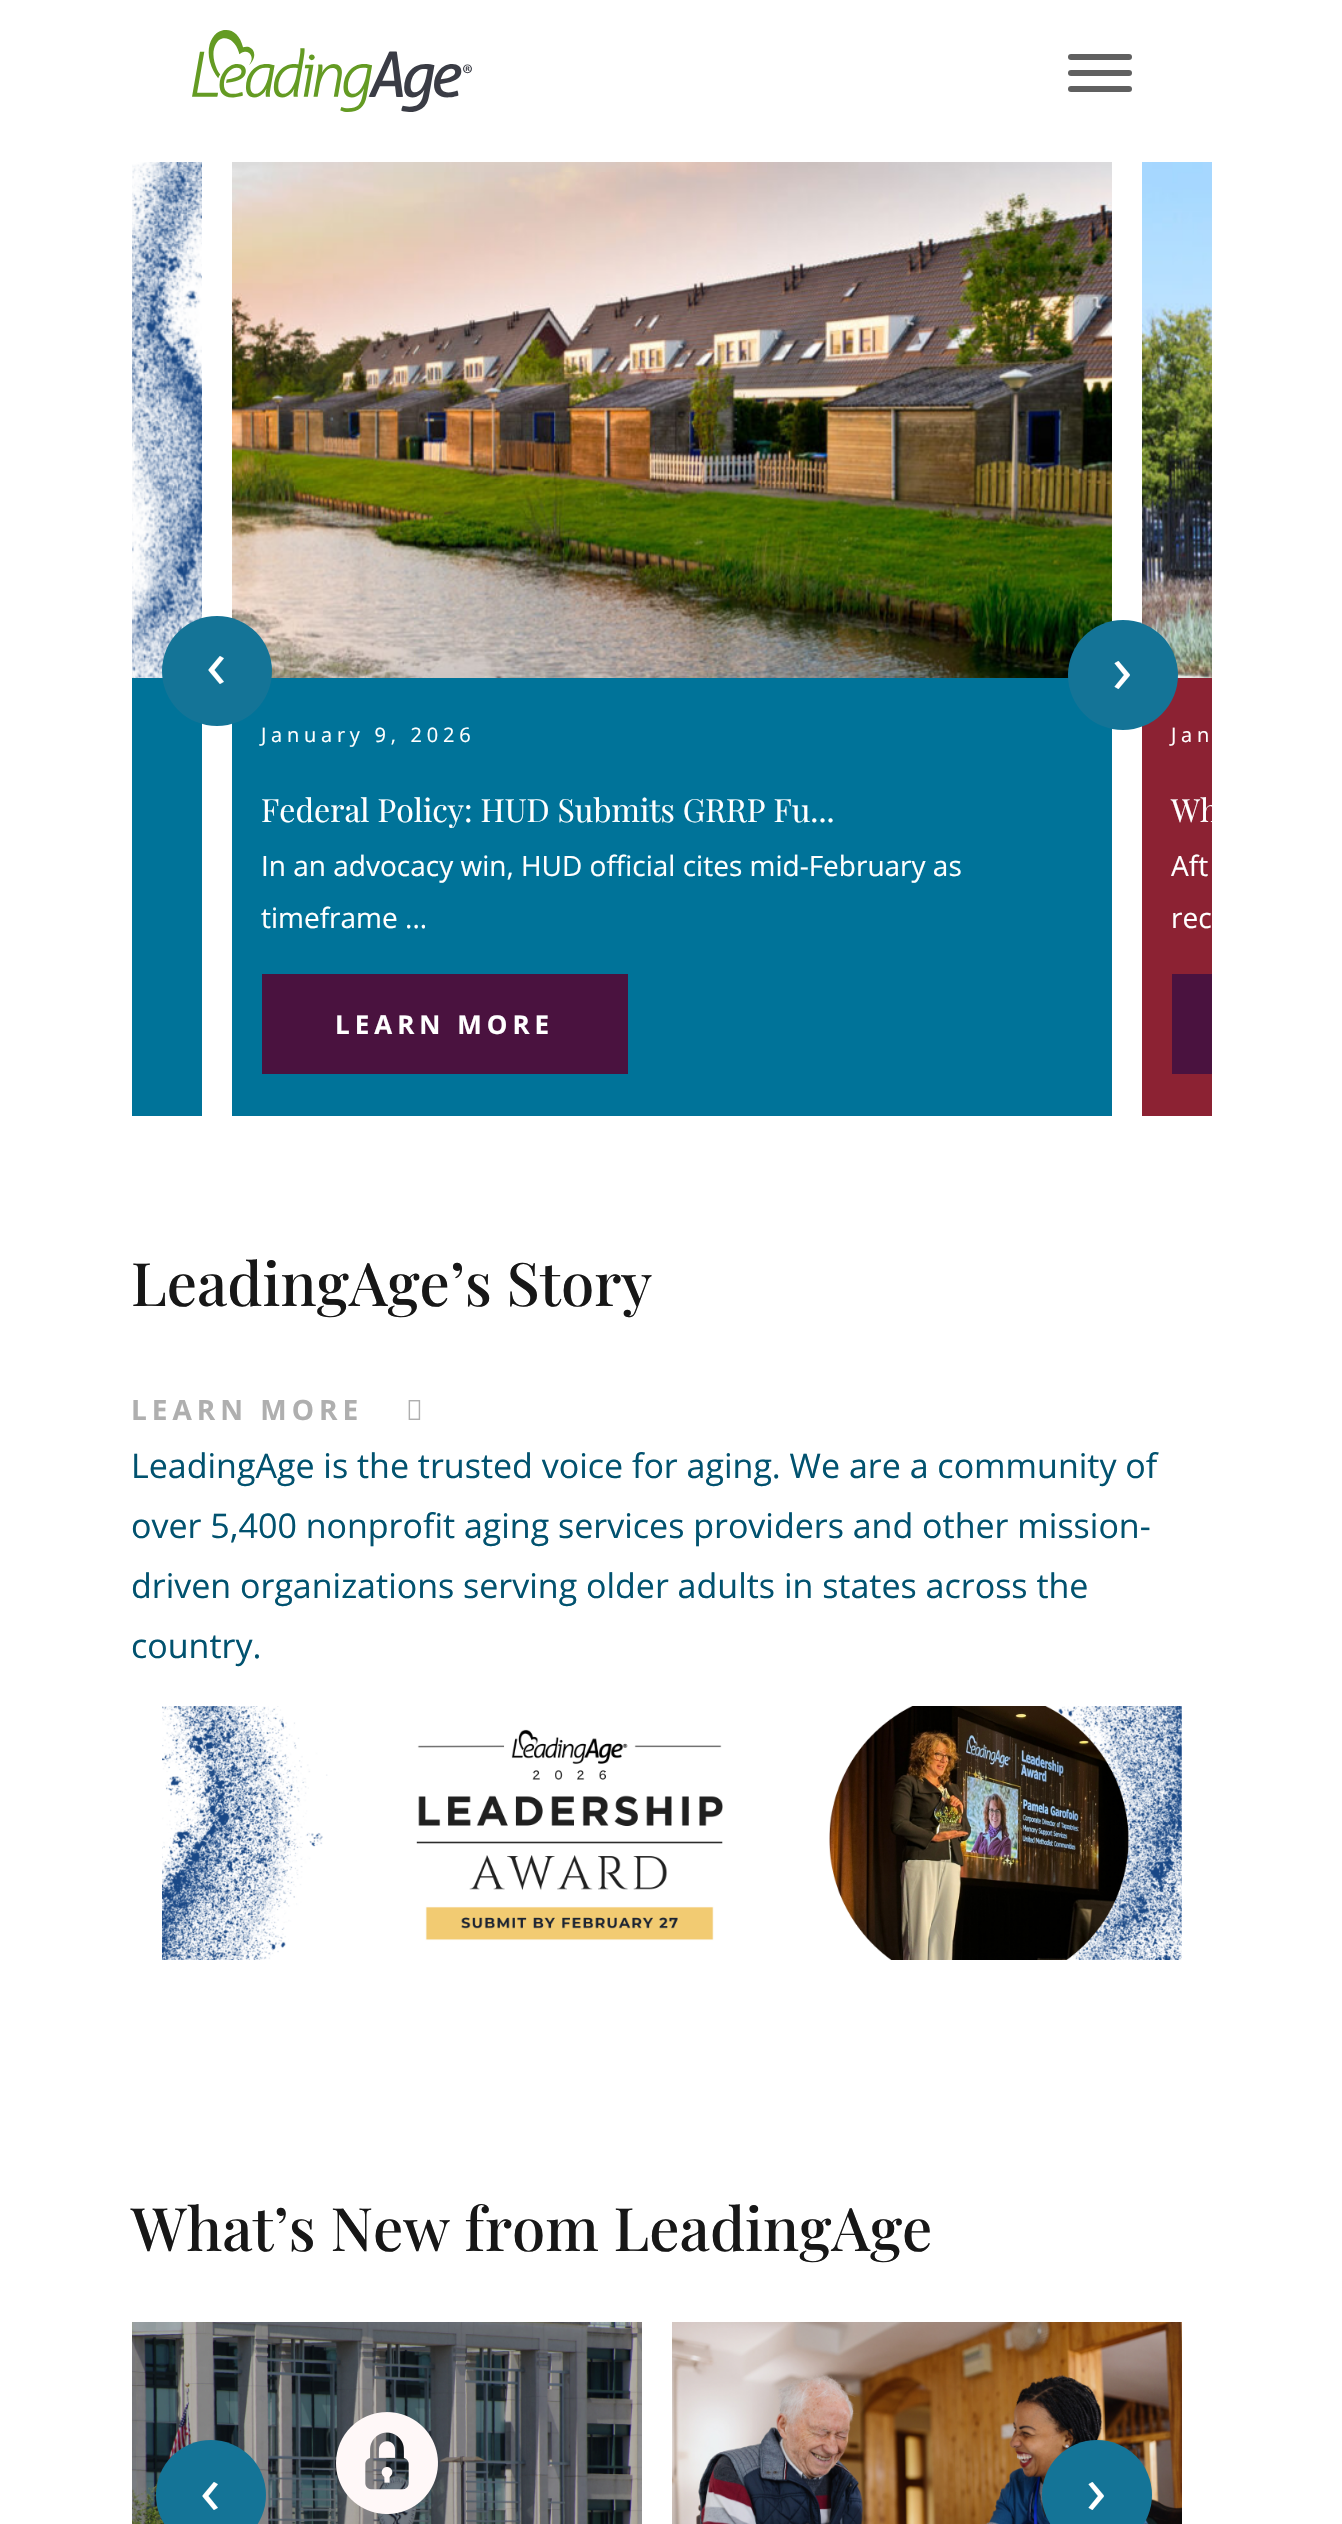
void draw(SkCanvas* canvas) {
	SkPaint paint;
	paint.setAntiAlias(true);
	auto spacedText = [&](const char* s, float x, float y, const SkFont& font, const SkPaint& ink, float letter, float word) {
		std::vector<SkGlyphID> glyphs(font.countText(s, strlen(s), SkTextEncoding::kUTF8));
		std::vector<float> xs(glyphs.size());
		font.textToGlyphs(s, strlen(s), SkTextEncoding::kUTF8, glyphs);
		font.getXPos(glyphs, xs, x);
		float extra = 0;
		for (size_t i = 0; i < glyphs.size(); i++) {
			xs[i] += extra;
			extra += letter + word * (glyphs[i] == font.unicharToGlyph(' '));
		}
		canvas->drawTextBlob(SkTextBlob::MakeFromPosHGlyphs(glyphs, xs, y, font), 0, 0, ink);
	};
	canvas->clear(0xffffffff);
	canvas->drawImageRect(SkImages::DeferredFromEncodedData(SkData::MakeFromFileName("img1.png")), SkRect::MakeXYWH(192, 30, 280, 82), SkSamplingOptions());
	paint.setColor(0xff606060);
	canvas->drawRoundRect(SkRect::MakeXYWH(1068, 54, 64, 6), 3, 3, paint);
	canvas->drawRoundRect(SkRect::MakeXYWH(1068, 70, 64, 6), 3, 3, paint);
	canvas->drawRoundRect(SkRect::MakeXYWH(1068, 86, 64, 6), 3, 3, paint);
	paint.setColor(0xff007399);
	canvas->drawRect(SkRect::MakeXYWH(132, 678, 70, 438), paint);
	canvas->drawImageRect(SkImages::DeferredFromEncodedData(SkData::MakeFromFileName("img2.png")), SkRect::MakeXYWH(132, 162, 70, 516), SkSamplingOptions());
	canvas->drawRect(SkRect::MakeXYWH(232, 678, 880, 438), paint);
	canvas->drawImageRect(SkImages::DeferredFromEncodedData(SkData::MakeFromFileName("img3.png")), SkRect::MakeXYWH(232, 162, 880, 516), SkSamplingOptions());
	paint.setColor(0xff147497);
	canvas->drawCircle(217, 671, 55, paint);
	SkFont f1(fontMgr->matchFamilyStyle("Open Sans", SkFontStyle::Normal()), 68);
	f1.setSubpixel(true);
	paint.setColor(0xffffffff);
	canvas->drawString("‹", 206, 688, f1, paint);
	paint.setColor(0xff8c2233);
	canvas->drawRect(SkRect::MakeXYWH(1142, 678, 70, 438), paint);
	canvas->drawImageRect(SkImages::DeferredFromEncodedData(SkData::MakeFromFileName("img4.png")), SkRect::MakeXYWH(1142, 162, 70, 516), SkSamplingOptions());
	SkFont f2(fontMgr->matchFamilyStyle("Open Sans", SkFontStyle::Normal()), 20);
	f2.setSubpixel(true);
	paint.setColor(0xffffffff);
	spacedText("Jan", 1171, 742, f2, paint, 4.75, 0);
	paint.setColor(0xff147497);
	canvas->drawCircle(1123, 675, 55, paint);
	paint.setColor(0xffffffff);
	canvas->drawString("›", 1112, 693, f1, paint);
	spacedText("January 9, 2026", 261, 742, f2, paint, 4.75, 0);
	SkFont f3(fontMgr->matchFamilyStyle("Playfair Display", SkFontStyle::Normal()), 32);
	f3.setSubpixel(true);
	canvas->drawString("Federal Policy: HUD Submits GRRP Fu...", 261, 822, f3, paint);
	SkFont f4(fontMgr->matchFamilyStyle("Open Sans", SkFontStyle::Normal()), 28);
	f4.setSubpixel(true);
	canvas->drawString("In an advocacy win, HUD official cites mid-February as", 261, 876, f4, paint);
	canvas->drawString("timeframe ...", 261, 928, f4, paint);
	paint.setColor(0xff4a123f);
	canvas->drawRect(SkRect::MakeXYWH(262, 974, 366, 100), paint);
	SkFont f5(fontMgr->matchFamilyStyle("Open Sans", SkFontStyle::Bold()), 26);
	f5.setSubpixel(true);
	paint.setColor(0xffffffff);
	spacedText("LEARN MORE", 335, 1034, f5, paint, 5, 0);
	canvas->save();
	canvas->clipRect(SkRect::MakeXYWH(132, 162, 1080, 954));
	canvas->drawString("Wh", 1171, 822, f3, paint);
	canvas->restore();
	canvas->drawString("Aft", 1171, 876, f4, paint);
	canvas->drawString("rec", 1171, 928, f4, paint);
	paint.setColor(0xff4a123f);
	canvas->drawRect(SkRect::MakeXYWH(1172, 974, 40, 100), paint);
	SkFont f6(fontMgr->matchFamilyStyle("Playfair Display", SkFontStyle(500, SkFontStyle::kNormal_Width, SkFontStyle::kUpright_Slant)), 60);
	f6.setSubpixel(true);
	paint.setColor(0xff171717);
	canvas->drawString("LeadingAge’s Story", 131, 1306, f6, paint);
	SkFont f7(fontMgr->matchFamilyStyle("Open Sans", SkFontStyle::Bold()), 28);
	f7.setSubpixel(true);
	paint.setColor(0xffafafaf);
	spacedText("LEARN MORE", 131, 1420, f7, paint, 5, 0);
	canvas->drawImageRect(SkImages::DeferredFromEncodedData(SkData::MakeFromFileName("img5.png")), SkRect::MakeXYWH(408, 1400, 13, 20), SkSamplingOptions());
	SkFont f8(fontMgr->matchFamilyStyle("Open Sans", SkFontStyle::Normal()), 34);
	f8.setSubpixel(true);
	paint.setColor(0xff01526f);
	canvas->drawString("LeadingAge is the trusted voice for aging. We are a community of", 131, 1478, f8, paint);
	canvas->drawString("over 5,400 nonprofit aging services providers and other mission-", 131, 1538, f8, paint);
	canvas->drawString("driven organizations serving older adults in states across the", 131, 1598, f8, paint);
	canvas->drawString("country.", 131, 1658, f8, paint);
	canvas->drawImageRect(SkImages::DeferredFromEncodedData(SkData::MakeFromFileName("img6.png")), SkRect::MakeXYWH(162, 1706, 1020, 254), SkSamplingOptions());
	paint.setColor(0xff171717);
	canvas->drawString("What’s New from LeadingAge", 131, 2251, f6, paint);
	canvas->drawImageRect(SkImages::DeferredFromEncodedData(SkData::MakeFromFileName("img7.png")), SkRect::MakeXYWH(132, 2322, 510, 202), SkSamplingOptions());
	canvas->drawImageRect(SkImages::DeferredFromEncodedData(SkData::MakeFromFileName("img8.png")), SkRect::MakeXYWH(336, 2412, 102, 102), SkSamplingOptions());
	canvas->drawImageRect(SkImages::DeferredFromEncodedData(SkData::MakeFromFileName("img9.png")), SkRect::MakeXYWH(672, 2322, 510, 202), SkSamplingOptions());
	paint.setColor(0xff147497);
	canvas->drawCircle(211, 2495, 55, paint);
	paint.setColor(0xffffffff);
	canvas->drawString("‹", 200, 2514, f1, paint);
	paint.setColor(0xff147497);
	canvas->drawCircle(1097, 2495, 55, paint);
	paint.setColor(0xffffffff);
	canvas->drawString("›", 1086, 2514, f1, paint);
}
